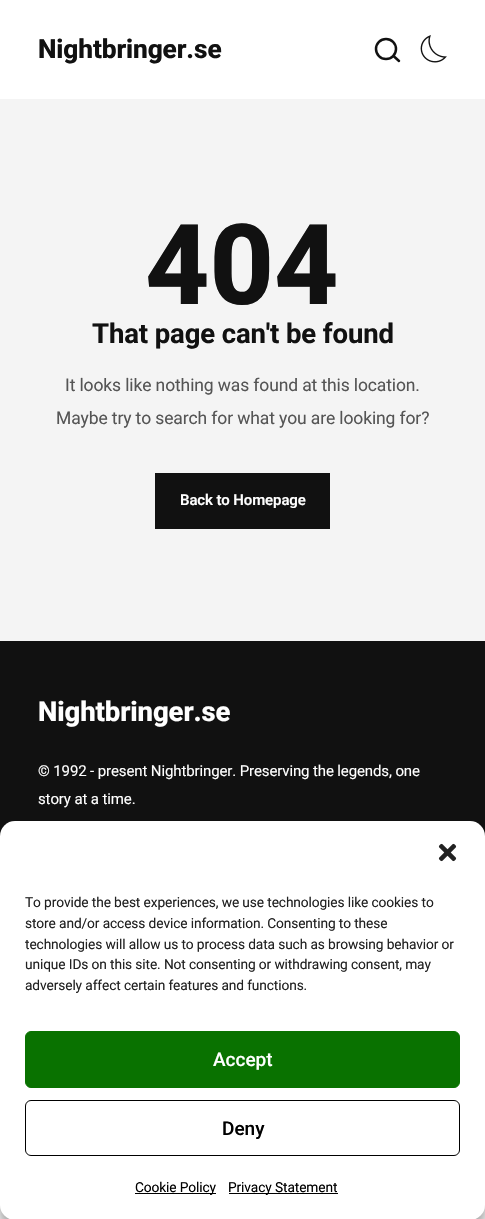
void draw(SkCanvas* canvas) {
	SkPaint paint;
	paint.setAntiAlias(true);
	auto spacedText = [&](const char* s, float x, float y, const SkFont& font, const SkPaint& ink, float letter, float word) {
		std::vector<SkGlyphID> glyphs(font.countText(s, strlen(s), SkTextEncoding::kUTF8));
		std::vector<float> xs(glyphs.size());
		font.textToGlyphs(s, strlen(s), SkTextEncoding::kUTF8, glyphs);
		font.getXPos(glyphs, xs, x);
		float extra = 0;
		for (size_t i = 0; i < glyphs.size(); i++) {
			xs[i] += extra;
			extra += letter + word * (glyphs[i] == font.unicharToGlyph(' '));
		}
		canvas->drawTextBlob(SkTextBlob::MakeFromPosHGlyphs(glyphs, xs, y, font), 0, 0, ink);
	};
	auto svgPath = [&](const char* data, bool evenOdd = false) {
		SkPath result = *SkParsePath::FromSVGString(data);
		if (evenOdd) result.setFillType(SkPathFillType::kEvenOdd);
		return result;
	};
	canvas->clear(0xffffffff);
	SkFont f1(fontMgr->matchFamilyStyle("Roboto", SkFontStyle(800, SkFontStyle::kNormal_Width, SkFontStyle::kUpright_Slant)), 26.25);
	f1.setSubpixel(true);
	paint.setColor(0xff111111);
	spacedText("Nightbringer.se", 38, 58, f1, paint, -0.12, 0);
	paint.setStroke(true);
	paint.setStrokeWidth(2.5);
	canvas->drawCircle(386, 49, 10, paint);
	paint.setStrokeCap(SkPaint::kRound_Cap);
	paint.setStrokeJoin(SkPaint::kRound_Join);
	canvas->drawPath(svgPath("M399 61L393.5 56"), paint);
	canvas->drawImageRect(SkImages::DeferredFromEncodedData(SkData::MakeFromFileName("img1.png")), SkRect::MakeXYWH(420, 35, 27, 28), SkSamplingOptions());
	paint.setStroke(false);
	paint.setColor(0xfff4f4f4);
	canvas->drawRect(SkRect::MakeXYWH(0, 99, 485, 542), paint);
	SkFont f2(fontMgr->matchFamilyStyle("Roboto", SkFontStyle(800, SkFontStyle::kNormal_Width, SkFontStyle::kUpright_Slant)), 112);
	f2.setSubpixel(true);
	paint.setColor(0xff111111);
	spacedText("404", 145, 304, f2, paint, -0.12, 0);
	SkFont f3(fontMgr->matchFamilyStyle("Roboto", SkFontStyle::Bold()), 27.5);
	f3.setSubpixel(true);
	spacedText("That page can't be found", 92, 343, f3, paint, -0.12, 0);
	SkFont f4(fontMgr->matchFamilyStyle("Roboto", SkFontStyle::Normal()), 17.5);
	f4.setSubpixel(true);
	paint.setColor(0xff555555);
	spacedText("It looks like nothing was found at this location.", 65, 391, f4, paint, -0.12, 0);
	spacedText("Maybe try to search for what you are looking for?", 56, 424, f4, paint, -0.12, 0);
	paint.setColor(0xff111111);
	canvas->drawRect(SkRect::MakeXYWH(155, 473, 175, 56), paint);
	SkFont f5(fontMgr->matchFamilyStyle("Roboto", SkFontStyle(600, SkFontStyle::kNormal_Width, SkFontStyle::kUpright_Slant)), 15);
	f5.setSubpixel(true);
	paint.setColor(0xffffffff);
	spacedText("Back to Homepage", 180, 505, f5, paint, -0.12, 0);
	paint.setColor(0xff111111);
	canvas->drawRect(SkRect::MakeXYWH(0, 641, 485, 195), paint);
	SkFont f6(fontMgr->matchFamilyStyle("Roboto", SkFontStyle(800, SkFontStyle::kNormal_Width, SkFontStyle::kUpright_Slant)), 27.5);
	f6.setSubpixel(true);
	paint.setColor(0xffffffff);
	spacedText("Nightbringer.se", 38, 721, f6, paint, -0.12, 0);
	SkFont f7(fontMgr->matchFamilyStyle("Roboto", SkFontStyle::Normal()), 15);
	f7.setSubpixel(true);
	spacedText("© 1992 - present Nightbringer. Preserving the legends, one", 38, 776, f7, paint, -0.12, 0);
	spacedText("story at a time.", 38, 804, f7, paint, -0.12, 0);
	paint.setColor(0x3b000000);
	paint.setMaskFilter(SkMaskFilter::MakeBlur(kNormal_SkBlurStyle, 4));
	canvas->drawRoundRect(SkRect::MakeXYWH(0, 829, 485, 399), 15, 15, paint);
	paint.setMaskFilter(nullptr);
	paint.setColor(0x30000000);
	paint.setMaskFilter(SkMaskFilter::MakeBlur(kNormal_SkBlurStyle, 12.5));
	canvas->drawRoundRect(SkRect::MakeXYWH(0, 834, 485, 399), 15, 15, paint);
	paint.setMaskFilter(nullptr);
	paint.setColor(0xffffffff);
	canvas->drawRoundRect(SkRect::MakeXYWH(0, 821, 485, 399), 15, 15, paint);
	canvas->drawImageRect(SkImages::DeferredFromEncodedData(SkData::MakeFromFileName("img2.png")), SkRect::MakeXYWH(438, 843, 19, 19), SkSamplingOptions());
	SkFont f8(fontMgr->matchFamilyStyle("Roboto", SkFontStyle::Normal()), 13.75);
	f8.setSubpixel(true);
	paint.setColor(0xff222222);
	spacedText("To provide the best experiences, we use technologies like cookies to", 25, 907, f8, paint, -0.12, 0);
	spacedText("store and/or access device information. Consenting to these", 25, 928, f8, paint, -0.12, 0);
	spacedText("technologies will allow us to process data such as browsing behavior or", 25, 949, f8, paint, -0.12, 0);
	spacedText("unique IDs on this site. Not consenting or withdrawing consent, may", 25, 969, f8, paint, -0.12, 0);
	spacedText("adversely affect certain features and functions.", 25, 990, f8, paint, -0.12, 0);
	paint.setColor(0xff097200);
	canvas->drawRoundRect(SkRect::MakeXYWH(25.5, 1031.5, 434, 56), 5.5, 5.5, paint);
	paint.setStroke(true);
	paint.setStrokeWidth(1);
	paint.setStrokeCap(SkPaint::kButt_Cap);
	paint.setStrokeJoin(SkPaint::kMiter_Join);
	canvas->drawRoundRect(SkRect::MakeXYWH(25.5, 1031.5, 434, 56), 5.5, 5.5, paint);
	SkFont f9(fontMgr->matchFamilyStyle("Roboto", SkFontStyle(500, SkFontStyle::kNormal_Width, SkFontStyle::kUpright_Slant)), 19);
	f9.setSubpixel(true);
	paint.setStroke(false);
	paint.setColor(0xffffffff);
	canvas->drawString("Accept", 213, 1066, f9, paint);
	paint.setStroke(true);
	paint.setColor(0xff000000);
	canvas->drawRoundRect(SkRect::MakeXYWH(25.5, 1100.5, 434, 55), 5.5, 5.5, paint);
	paint.setStroke(false);
	canvas->drawString("Deny", 222, 1135, f9, paint);
	canvas->drawRect(SkRect::MakeXYWH(135, 1193, 81, 1), paint);
	spacedText("Cookie Policy", 135, 1192, f8, paint, -0.12, 0);
	canvas->drawRect(SkRect::MakeXYWH(229, 1193, 109, 1), paint);
	spacedText("Privacy Statement", 228, 1192, f8, paint, -0.12, 0);
}
